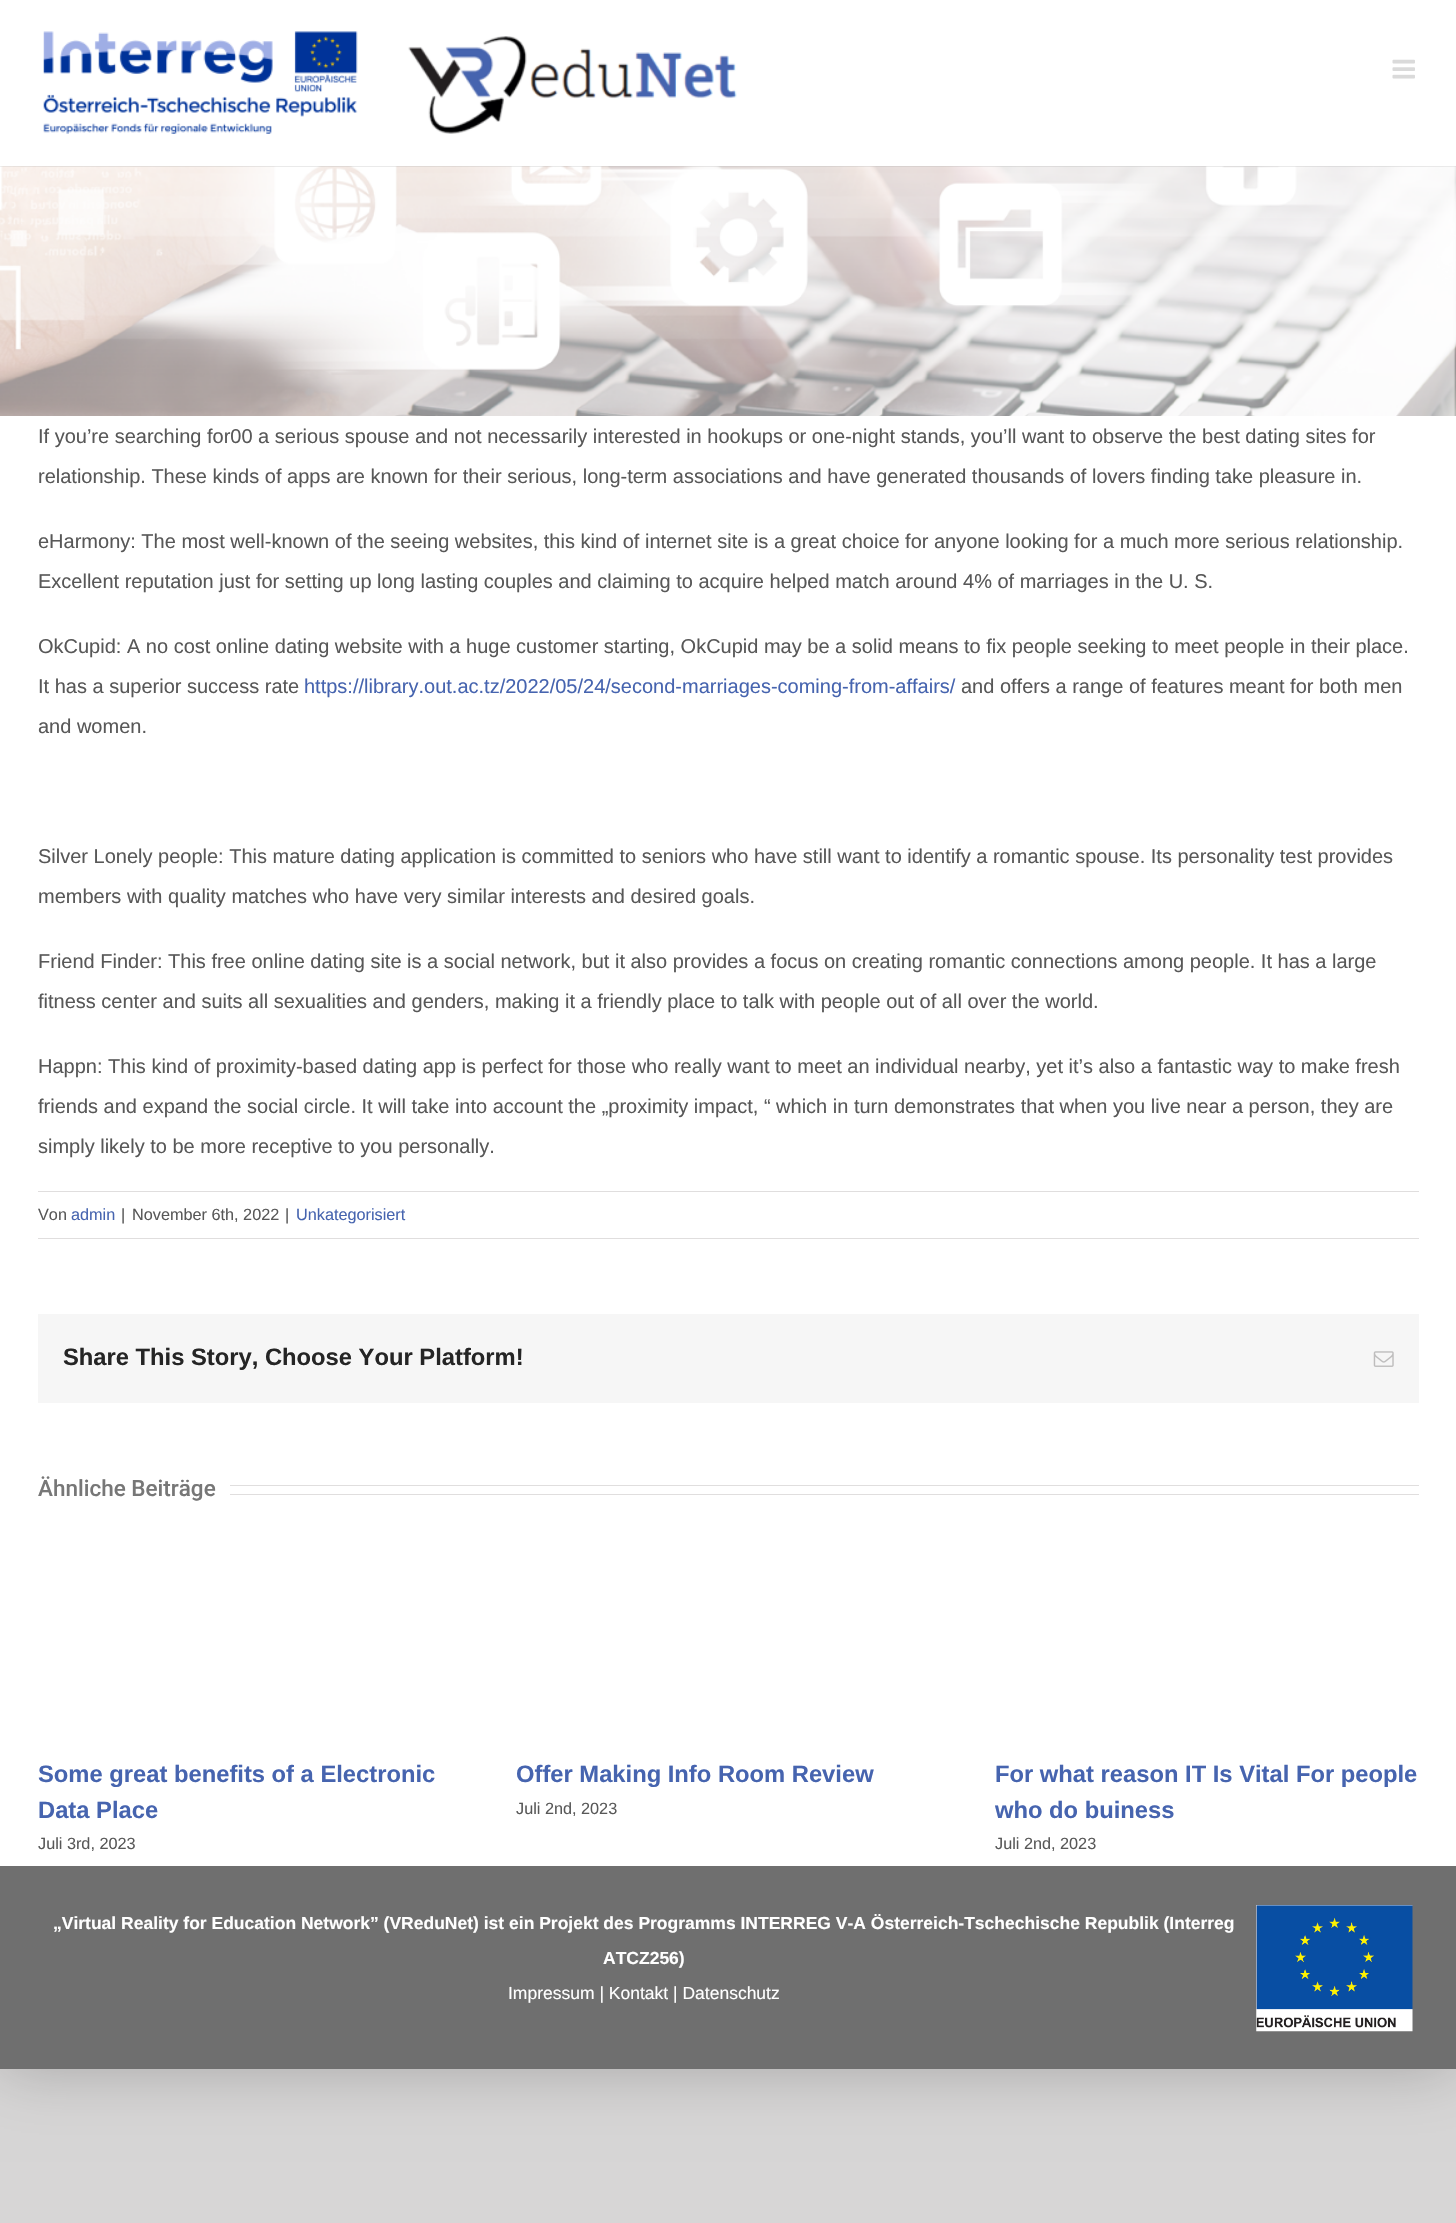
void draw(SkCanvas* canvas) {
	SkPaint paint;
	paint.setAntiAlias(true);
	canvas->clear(0xffd7d6d6);
	paint.setColor(0x38000000);
	paint.setMaskFilter(SkMaskFilter::MakeBlur(kNormal_SkBlurStyle, 31));
	canvas->drawRect(SkRect::MakeXYWH(-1, -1, 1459, 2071), paint);
	paint.setMaskFilter(nullptr);
	paint.setColor(0xffffffff);
	canvas->drawRect(SkRect::MakeXYWH(0, 0, 1456, 166), paint);
	canvas->drawImageRect(SkImages::DeferredFromEncodedData(SkData::MakeFromFileName("img1.png")), SkRect::MakeXYWH(43, 31, 694, 103), SkSamplingOptions());
	canvas->drawImageRect(SkImages::DeferredFromEncodedData(SkData::MakeFromFileName("img2.png")), SkRect::MakeXYWH(1392, 59, 23, 20), SkSamplingOptions());
	canvas->drawImageRect(SkImages::DeferredFromEncodedData(SkData::MakeFromFileName("img3.png")), SkRect::MakeXYWH(0, 166, 1456, 250), SkSamplingOptions());
	canvas->drawRect(SkRect::MakeXYWH(0, 416, 1456, 1450), paint);
	SkFont f1(fontMgr->matchFamilyStyle("Liberation Sans", SkFontStyle::Normal()), 20);
	f1.setSubpixel(true);
	paint.setColor(0xff585858);
	canvas->drawString("If you’re searching for00 a serious spouse and not necessarily interested in hookups or one-night stands, you’ll want to observe the best dating sites for", 38, 443, f1, paint);
	canvas->drawString("relationship. These kinds of apps are known for their serious, long-term associations and have generated thousands of lovers finding take pleasure in.", 38, 483, f1, paint);
	canvas->drawString("eHarmony: The most well-known of the seeing websites, this kind of internet site is a great choice for anyone looking for a much more serious relationship.", 38, 548, f1, paint);
	canvas->drawString("Excellent reputation just for setting up long lasting couples and claiming to acquire helped match around 4% of marriages in the U. S.", 38, 588, f1, paint);
	canvas->drawString("OkCupid: A no cost online dating website with a huge customer starting, OkCupid may be a solid means to fix people seeking to meet people in their place.", 38, 653, f1, paint);
	canvas->drawString("It has a superior success rate", 38, 693, f1, paint);
	paint.setColor(0xff4664af);
	canvas->drawString("https://library.out.ac.tz/2022/05/24/second-marriages-coming-from-affairs/", 304, 693, f1, paint);
	paint.setColor(0xff585858);
	canvas->drawString("and offers a range of features meant for both men", 961, 693, f1, paint);
	canvas->drawString("and women.", 38, 733, f1, paint);
	canvas->drawString("Silver Lonely people: This mature dating application is committed to seniors who have still want to identify a romantic spouse. Its personality test provides", 38, 863, f1, paint);
	canvas->drawString("members with quality matches who have very similar interests and desired goals.", 38, 903, f1, paint);
	canvas->drawString("Friend Finder: This free online dating site is a social network, but it also provides a focus on creating romantic connections among people. It has a large", 38, 968, f1, paint);
	canvas->drawString("fitness center and suits all sexualities and genders, making it a friendly place to talk with people out of all over the world.", 38, 1008, f1, paint);
	canvas->drawString("Happn: This kind of proximity-based dating app is perfect for those who really want to meet an individual nearby, yet it’s also a fantastic way to make fresh", 38, 1073, f1, paint);
	canvas->drawString("friends and expand the social circle. It will take into account the „proximity impact, “ which in turn demonstrates that when you live near a person, they are", 38, 1113, f1, paint);
	canvas->drawString("simply likely to be more receptive to you personally.", 38, 1153, f1, paint);
	paint.setColor(0xffe0dede);
	canvas->drawRect(SkRect::MakeXYWH(38, 1191, 1381, 1), paint);
	canvas->drawRect(SkRect::MakeXYWH(38, 1238, 1381, 1), paint);
	SkFont f2(fontMgr->matchFamilyStyle("Liberation Sans", SkFontStyle::Normal()), 16.25);
	f2.setSubpixel(true);
	paint.setColor(0xff585858);
	canvas->drawString("Von", 38, 1220, f2, paint);
	paint.setColor(0xff4664af);
	canvas->drawString("admin", 71, 1220, f2, paint);
	paint.setColor(0xff585858);
	canvas->drawString("|", 121, 1220, f2, paint);
	canvas->drawString("November 6th, 2022", 132, 1220, f2, paint);
	canvas->drawString("|", 285, 1220, f2, paint);
	paint.setColor(0xff4664af);
	canvas->drawString("Unkategorisiert", 296, 1220, f2, paint);
	paint.setColor(0xfff6f6f6);
	canvas->drawRect(SkRect::MakeXYWH(38, 1314, 1381, 89), paint);
	SkFont f3(fontMgr->matchFamilyStyle("Liberation Sans", SkFontStyle::Bold()), 23.75);
	f3.setSubpixel(true);
	paint.setColor(0xff252525);
	canvas->drawString("Share This Story, Choose Your Platform!", 63, 1365, f3, paint);
	canvas->drawImageRect(SkImages::DeferredFromEncodedData(SkData::MakeFromFileName("img4.png")), SkRect::MakeXYWH(1373, 1351, 21, 16), SkSamplingOptions());
	SkFont f4(fontMgr->matchFamilyStyle("Roboto", SkFontStyle(500, SkFontStyle::kNormal_Width, SkFontStyle::kUpright_Slant)), 22.5);
	f4.setSubpixel(true);
	paint.setColor(0xff777777);
	canvas->drawString("Ähnliche Beiträge", 38, 1496, f4, paint);
	paint.setColor(0xffe0dede);
	canvas->drawRect(SkRect::MakeXYWH(230, 1485, 1189, 1), paint);
	canvas->drawRect(SkRect::MakeXYWH(230, 1494, 1189, 1), paint);
	paint.setColor(0xff4664af);
	canvas->drawString("Some great benefits of a Electronic", 38, 1782, f3, paint);
	canvas->drawString("Data Place", 38, 1818, f3, paint);
	paint.setColor(0xff585858);
	canvas->drawString("Juli 3rd, 2023", 38, 1849, f2, paint);
	paint.setColor(0xff4664af);
	canvas->drawString("Offer Making Info Room Review", 516, 1782, f3, paint);
	paint.setColor(0xff585858);
	canvas->drawString("Juli 2nd, 2023", 516, 1814, f2, paint);
	paint.setColor(0xff4664af);
	canvas->drawString("For what reason IT Is Vital For people", 995, 1782, f3, paint);
	canvas->drawString("who do buiness", 995, 1818, f3, paint);
	paint.setColor(0xff585858);
	canvas->drawString("Juli 2nd, 2023", 995, 1849, f2, paint);
	paint.setColor(0xff6f6f6f);
	canvas->drawRect(SkRect::MakeXYWH(0, 1866, 1456, 203), paint);
	SkFont f5(fontMgr->matchFamilyStyle("Liberation Sans", SkFontStyle::Bold()), 17.5);
	f5.setSubpixel(true);
	paint.setColor(0xffffffff);
	canvas->drawString("„Virtual Reality for Education Network” (VReduNet) ist ein Projekt des Programms INTERREG V-A Österreich-Tschechische Republik (Interreg", 53, 1929, f5, paint);
	canvas->drawImageRect(SkImages::DeferredFromEncodedData(SkData::MakeFromFileName("img5.png")), SkRect::MakeXYWH(1256, 1905, 157, 127), SkSamplingOptions());
	canvas->drawString("ATCZ256)", 603, 1964, f5, paint);
	SkFont f6(fontMgr->matchFamilyStyle("Liberation Sans", SkFontStyle::Normal()), 17.5);
	f6.setSubpixel(true);
	canvas->drawString("Impressum | Kontakt | Datenschutz", 508, 1999, f6, paint);
}
